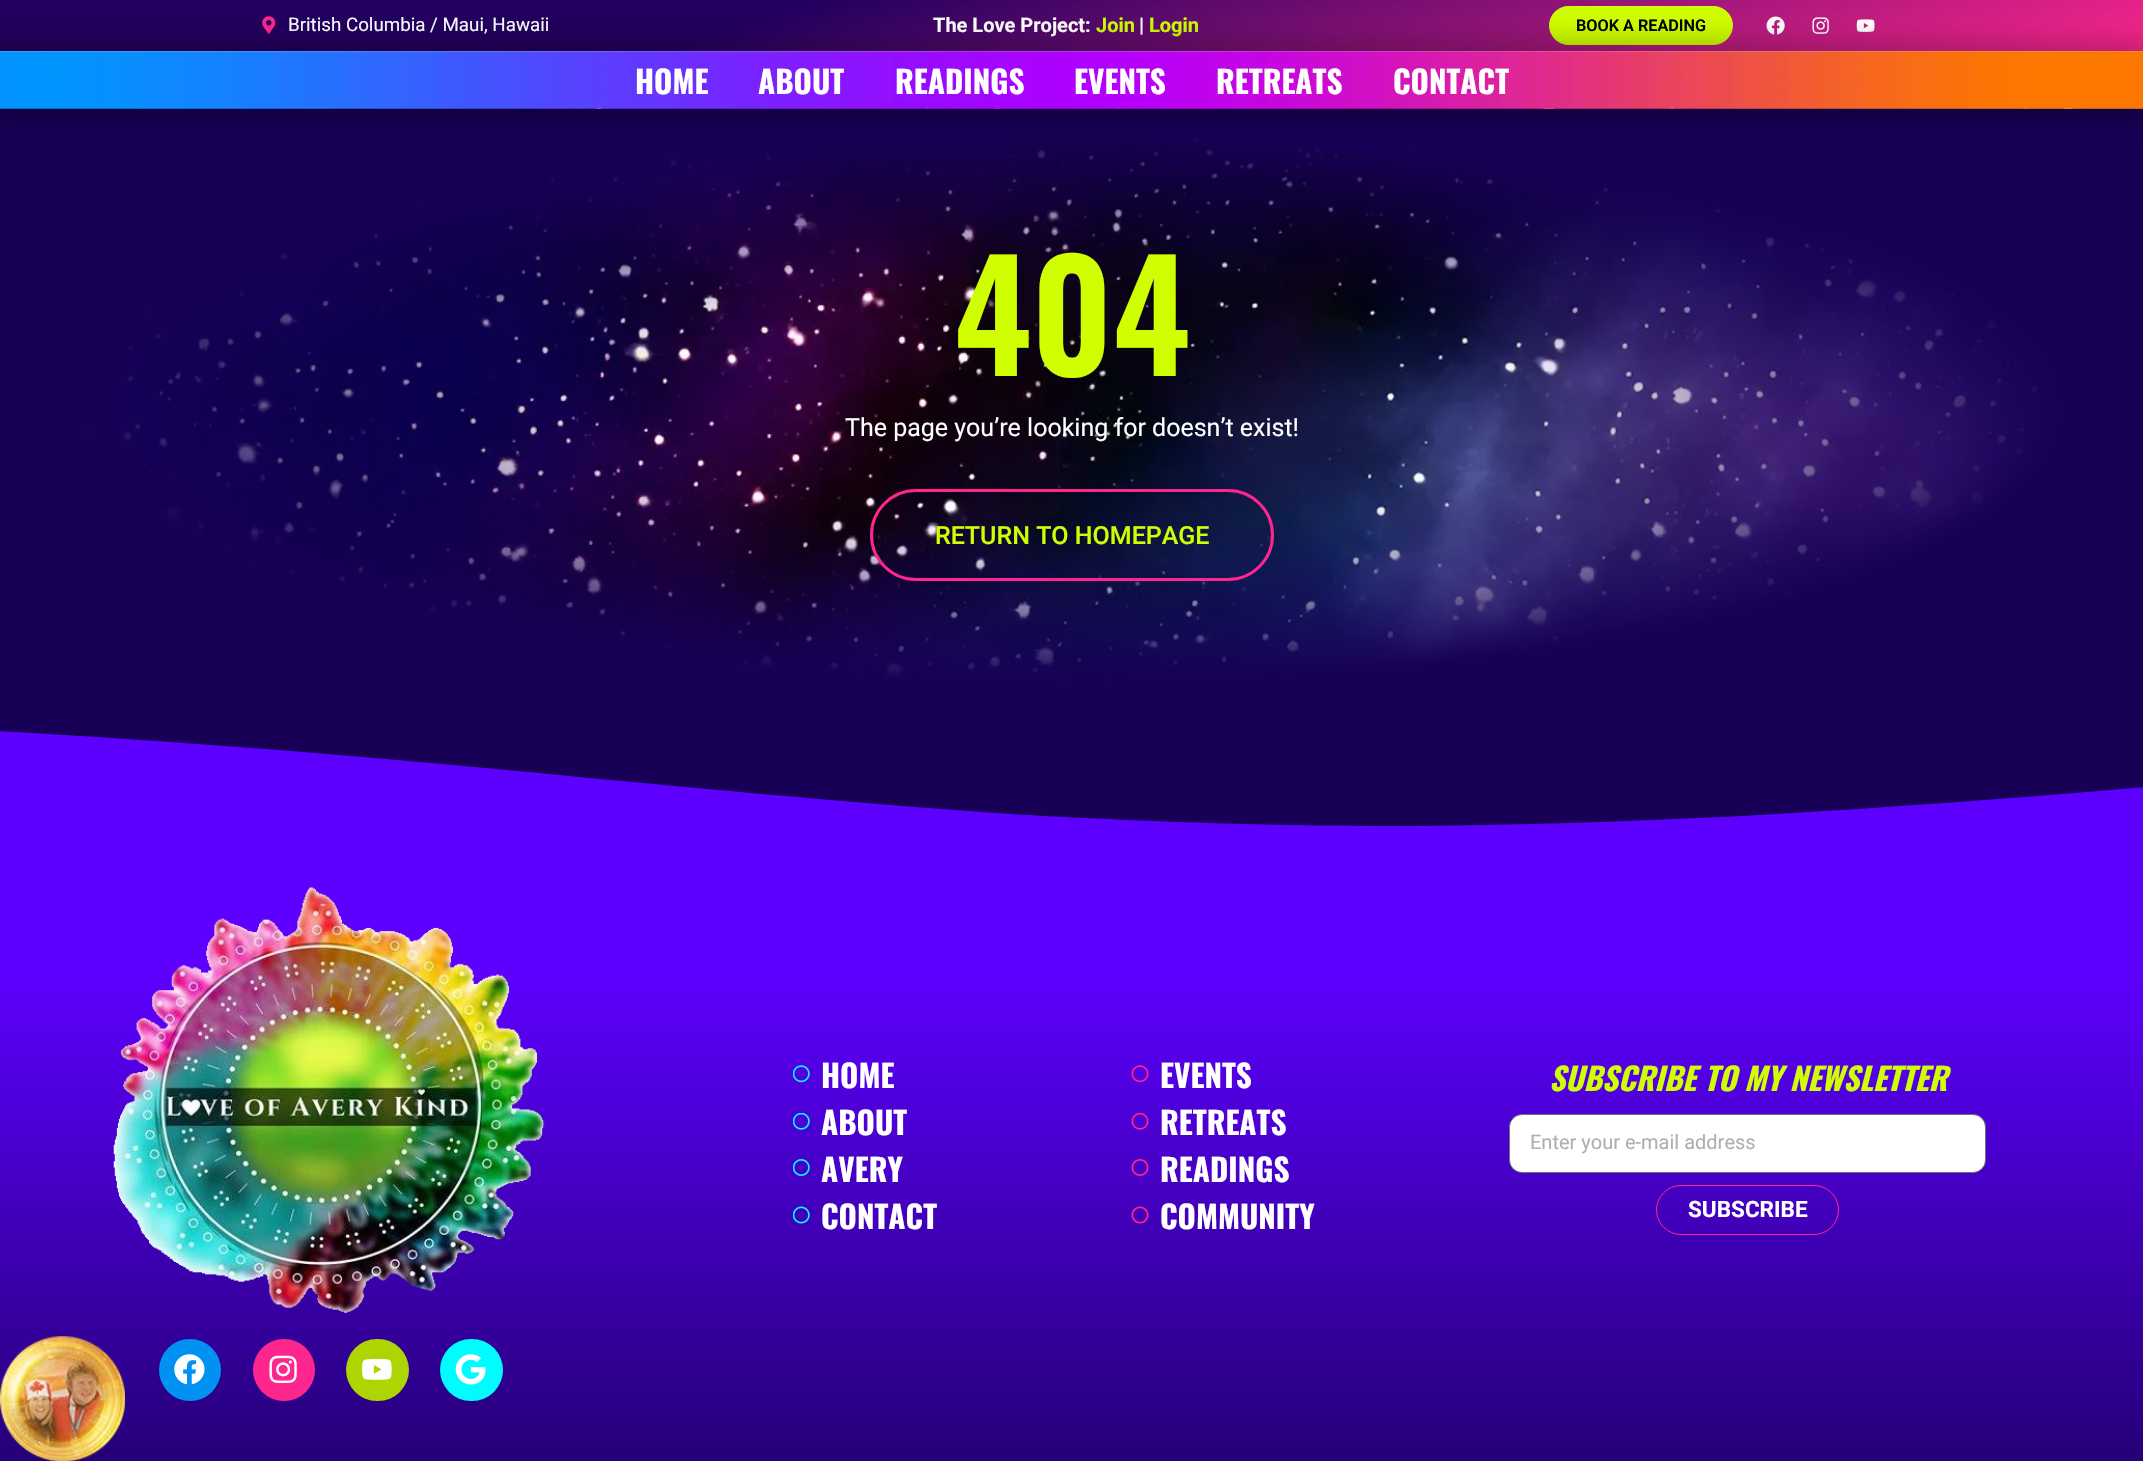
void draw(SkCanvas* canvas) {
	SkPaint paint;
	paint.setAntiAlias(true);
	auto svgPath = [&](const char* data, bool evenOdd = false) {
		SkPath result = *SkParsePath::FromSVGString(data);
		if (evenOdd) result.setFillType(SkPathFillType::kEvenOdd);
		return result;
	};
	canvas->clear(0xffffffff);
	{
		const SkColor colors[] = {0xff23005f, 0xfffe268e};
		const float stops[] = {0.36, 1};
		const SkPoint ends[] = {{984, -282}, {1160, 333}};
		paint.setShader(SkGradientShader::MakeLinear(ends, colors, stops, 2, SkTileMode::kClamp));
		paint.setAlpha(255);
	}
	canvas->drawRect(SkRect::MakeXYWH(0, 0, 2143, 51), paint);
	canvas->drawImageRect(SkImages::DeferredFromEncodedData(SkData::MakeFromFileName("img1.png")), SkRect::MakeXYWH(262, 16, 14, 18), SkSamplingOptions());
	SkFont f1(fontMgr->matchFamilyStyle("Roboto", SkFontStyle::Normal()), 18.75);
	f1.setSubpixel(true);
	paint.setShader(nullptr);
	paint.setColor(0xffffffff);
	canvas->drawString("British Columbia / Maui, Hawaii", 288, 31, f1, paint);
	SkFont f2(fontMgr->matchFamilyStyle("Roboto", SkFontStyle::Bold()), 20);
	f2.setSubpixel(true);
	canvas->drawString("The Love Project:", 933, 32, f2, paint);
	paint.setColor(0xffcfff00);
	canvas->drawString("Join", 1096, 32, f2, paint);
	paint.setColor(0xffffffff);
	canvas->drawString("|", 1139, 32, f2, paint);
	paint.setColor(0xffcfff00);
	canvas->drawString("Login", 1149, 32, f2, paint);
	canvas->drawRoundRect(SkRect::MakeXYWH(1549.5, 6.5, 183, 38), 19, 19, paint);
	paint.setStroke(true);
	paint.setStrokeWidth(1);
	canvas->drawRoundRect(SkRect::MakeXYWH(1549.5, 6.5, 183, 38), 19, 19, paint);
	SkFont f3(fontMgr->matchFamilyStyle("Roboto", SkFontStyle(600, SkFontStyle::kNormal_Width, SkFontStyle::kUpright_Slant)), 16.25);
	f3.setSubpixel(true);
	paint.setStroke(false);
	paint.setColor(0xff000000);
	canvas->drawString("BOOK A READING", 1576, 31, f3, paint);
	canvas->drawImageRect(SkImages::DeferredFromEncodedData(SkData::MakeFromFileName("img2.png")), SkRect::MakeXYWH(1766, 16, 19, 19), SkSamplingOptions());
	canvas->drawImageRect(SkImages::DeferredFromEncodedData(SkData::MakeFromFileName("img3.png")), SkRect::MakeXYWH(1812, 17, 17, 17), SkSamplingOptions());
	canvas->drawImageRect(SkImages::DeferredFromEncodedData(SkData::MakeFromFileName("img4.png")), SkRect::MakeXYWH(1856, 19, 19, 13), SkSamplingOptions());
	canvas->drawImageRect(SkImages::DeferredFromEncodedData(SkData::MakeFromFileName("img6.png")), SkRect::MakeXYWH(0, 108, 2143, 598), SkSamplingOptions());
	paint.setColor(0x3d000000);
	paint.setMaskFilter(SkMaskFilter::MakeBlur(kNormal_SkBlurStyle, 12));
	canvas->drawRect(SkRect::MakeXYWH(-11, 40, 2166, 80), paint);
	paint.setMaskFilter(nullptr);
	canvas->drawImageRect(SkImages::DeferredFromEncodedData(SkData::MakeFromFileName("img5.png")), SkRect::MakeXYWH(0, 51, 2143, 58), SkSamplingOptions());
	SkFont f4(fontMgr->matchFamilyStyle("Oswald", SkFontStyle::Bold()), 31.25);
	f4.setSubpixel(true);
	paint.setColor(0xffffffff);
	canvas->drawString("HOME", 635, 94, f4, paint);
	canvas->drawString("ABOUT", 758, 94, f4, paint);
	canvas->drawString("READINGS", 895, 94, f4, paint);
	canvas->drawString("EVENTS", 1074, 94, f4, paint);
	canvas->drawString("RETREATS", 1216, 94, f4, paint);
	canvas->drawString("CONTACT", 1393, 94, f4, paint);
	SkFont f5(fontMgr->matchFamilyStyle("Oswald", SkFontStyle(600, SkFontStyle::kNormal_Width, SkFontStyle::kUpright_Slant)), 150);
	f5.setSubpixel(true);
	paint.setColor(0xffcfff00);
	canvas->drawString("404", 954, 376, f5, paint);
	SkFont f6(fontMgr->matchFamilyStyle("Roboto", SkFontStyle::Normal()), 25);
	f6.setSubpixel(true);
	paint.setColor(0xffffffff);
	canvas->drawString("The page you’re looking for doesn’t exist!", 845, 436, f6, paint);
	paint.setStroke(true);
	paint.setStrokeWidth(3);
	paint.setColor(0xfffe268e);
	canvas->drawRoundRect(SkRect::MakeXYWH(871.5, 490.5, 401, 89), 44.5, 44.5, paint);
	SkFont f7(fontMgr->matchFamilyStyle("Roboto", SkFontStyle(500, SkFontStyle::kNormal_Width, SkFontStyle::kUpright_Slant)), 25);
	f7.setSubpixel(true);
	paint.setStroke(false);
	paint.setColor(0xffcfff00);
	canvas->drawString("RETURN TO HOMEPAGE", 935, 544, f7, paint);
	{
		const SkColor colors[] = {0xff5e00ff, 0xff170056};
		const float stops[] = {0.3, 1};
		const SkPoint ends[] = {{1072, 706}, {1072, 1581}};
		paint.setShader(SkGradientShader::MakeLinear(ends, colors, stops, 2, SkTileMode::kClamp));
		paint.setAlpha(255);
	}
	canvas->drawRect(SkRect::MakeXYWH(0, 731, 2143, 730), paint);
	paint.setShader(nullptr);
	paint.setColor(0xff170056);
	canvas->drawPath(svgPath("M-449 714C-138 721 162 736 559 775C714 790 961 813 1085 818C1208 824 1360 828 1480 825C1533 824 1598 823 1742 816C1884 808 2047 796 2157 786C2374 767 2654 759 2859 759C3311 757 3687 796 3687 796V706H-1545V748C-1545 748-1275 725-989 717C-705 710-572 712-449 714Z"), paint);
	canvas->drawImageRect(SkImages::DeferredFromEncodedData(SkData::MakeFromFileName("img7.png")), SkRect::MakeXYWH(113, 887, 432, 426), SkSamplingOptions());
	canvas->drawImageRect(SkImages::DeferredFromEncodedData(SkData::MakeFromFileName("img8.png")), SkRect::MakeXYWH(0, 1336, 125, 125), SkSamplingOptions());
	paint.setColor(0xff0091f2);
	canvas->drawCircle(190, 1370, 31, paint);
	canvas->drawImageRect(SkImages::DeferredFromEncodedData(SkData::MakeFromFileName("img9.png")), SkRect::MakeXYWH(174, 1354, 31, 31), SkSamplingOptions());
	paint.setColor(0xfffe268e);
	canvas->drawCircle(284, 1370, 31, paint);
	canvas->drawImageRect(SkImages::DeferredFromEncodedData(SkData::MakeFromFileName("img10.png")), SkRect::MakeXYWH(269, 1355, 28, 29), SkSamplingOptions());
	paint.setColor(0xffaed501);
	canvas->drawRoundRect(SkRect::MakeXYWH(346, 1339, 63, 62), 31, 31, paint);
	canvas->drawImageRect(SkImages::DeferredFromEncodedData(SkData::MakeFromFileName("img11.png")), SkRect::MakeXYWH(362, 1358, 30, 22), SkSamplingOptions());
	paint.setColor(0xff00fcff);
	canvas->drawRoundRect(SkRect::MakeXYWH(440, 1339, 63, 62), 31, 31, paint);
	canvas->drawImageRect(SkImages::DeferredFromEncodedData(SkData::MakeFromFileName("img12.png")), SkRect::MakeXYWH(455, 1354, 31, 31), SkSamplingOptions());
	canvas->drawImageRect(SkImages::DeferredFromEncodedData(SkData::MakeFromFileName("img13.png")), SkRect::MakeXYWH(793, 1065, 17, 18), SkSamplingOptions());
	paint.setColor(0xffffffff);
	canvas->drawString("HOME", 821, 1088, f4, paint);
	canvas->drawImageRect(SkImages::DeferredFromEncodedData(SkData::MakeFromFileName("img14.png")), SkRect::MakeXYWH(793, 1113, 17, 17), SkSamplingOptions());
	canvas->drawString("ABOUT", 821, 1135, f4, paint);
	canvas->drawImageRect(SkImages::DeferredFromEncodedData(SkData::MakeFromFileName("img15.png")), SkRect::MakeXYWH(793, 1159, 17, 17), SkSamplingOptions());
	canvas->drawString("AVERY", 821, 1182, f4, paint);
	canvas->drawImageRect(SkImages::DeferredFromEncodedData(SkData::MakeFromFileName("img16.png")), SkRect::MakeXYWH(793, 1206, 17, 18), SkSamplingOptions());
	canvas->drawString("CONTACT", 821, 1229, f4, paint);
	canvas->drawImageRect(SkImages::DeferredFromEncodedData(SkData::MakeFromFileName("img17.png")), SkRect::MakeXYWH(1131, 1065, 18, 18), SkSamplingOptions());
	canvas->drawString("EVENTS", 1160, 1088, f4, paint);
	canvas->drawImageRect(SkImages::DeferredFromEncodedData(SkData::MakeFromFileName("img18.png")), SkRect::MakeXYWH(1131, 1113, 18, 17), SkSamplingOptions());
	canvas->drawString("RETREATS", 1160, 1135, f4, paint);
	canvas->drawImageRect(SkImages::DeferredFromEncodedData(SkData::MakeFromFileName("img19.png")), SkRect::MakeXYWH(1131, 1159, 18, 17), SkSamplingOptions());
	canvas->drawString("READINGS", 1160, 1182, f4, paint);
	canvas->drawImageRect(SkImages::DeferredFromEncodedData(SkData::MakeFromFileName("img20.png")), SkRect::MakeXYWH(1131, 1206, 18, 18), SkSamplingOptions());
	canvas->drawString("COMMUNITY", 1160, 1229, f4, paint);
	SkFont f8(fontMgr->matchFamilyStyle("Oswald", SkFontStyle::BoldItalic()), 31.25);
	f8.setSubpixel(true);
	paint.setColor(0xffcfff00);
	canvas->drawString("SUBSCRIBE TO MY NEWSLETTER", 1549, 1091, f8, paint);
	paint.setColor(0xffffffff);
	canvas->drawRoundRect(SkRect::MakeXYWH(1509.5, 1114.5, 476, 58), 12.5, 12.5, paint);
	paint.setStroke(true);
	paint.setStrokeWidth(1);
	paint.setColor(0xff69727d);
	canvas->drawRoundRect(SkRect::MakeXYWH(1509.5, 1114.5, 476, 58), 12.5, 12.5, paint);
	SkFont f9(fontMgr->matchFamilyStyle("Roboto", SkFontStyle::Normal()), 20);
	f9.setSubpixel(true);
	paint.setStroke(false);
	paint.setColor(0xffafafaf);
	canvas->drawString("Enter your e-mail address", 1530, 1149, f9, paint);
	paint.setStroke(true);
	paint.setColor(0xfffe268e);
	canvas->drawRoundRect(SkRect::MakeXYWH(1656.5, 1185.5, 182, 49), 24.5, 24.5, paint);
	SkFont f10(fontMgr->matchFamilyStyle("Roboto", SkFontStyle::Bold()), 22.5);
	f10.setSubpixel(true);
	paint.setStroke(false);
	paint.setColor(0xffffffff);
	canvas->drawString("SUBSCRIBE", 1688, 1217, f10, paint);
}
